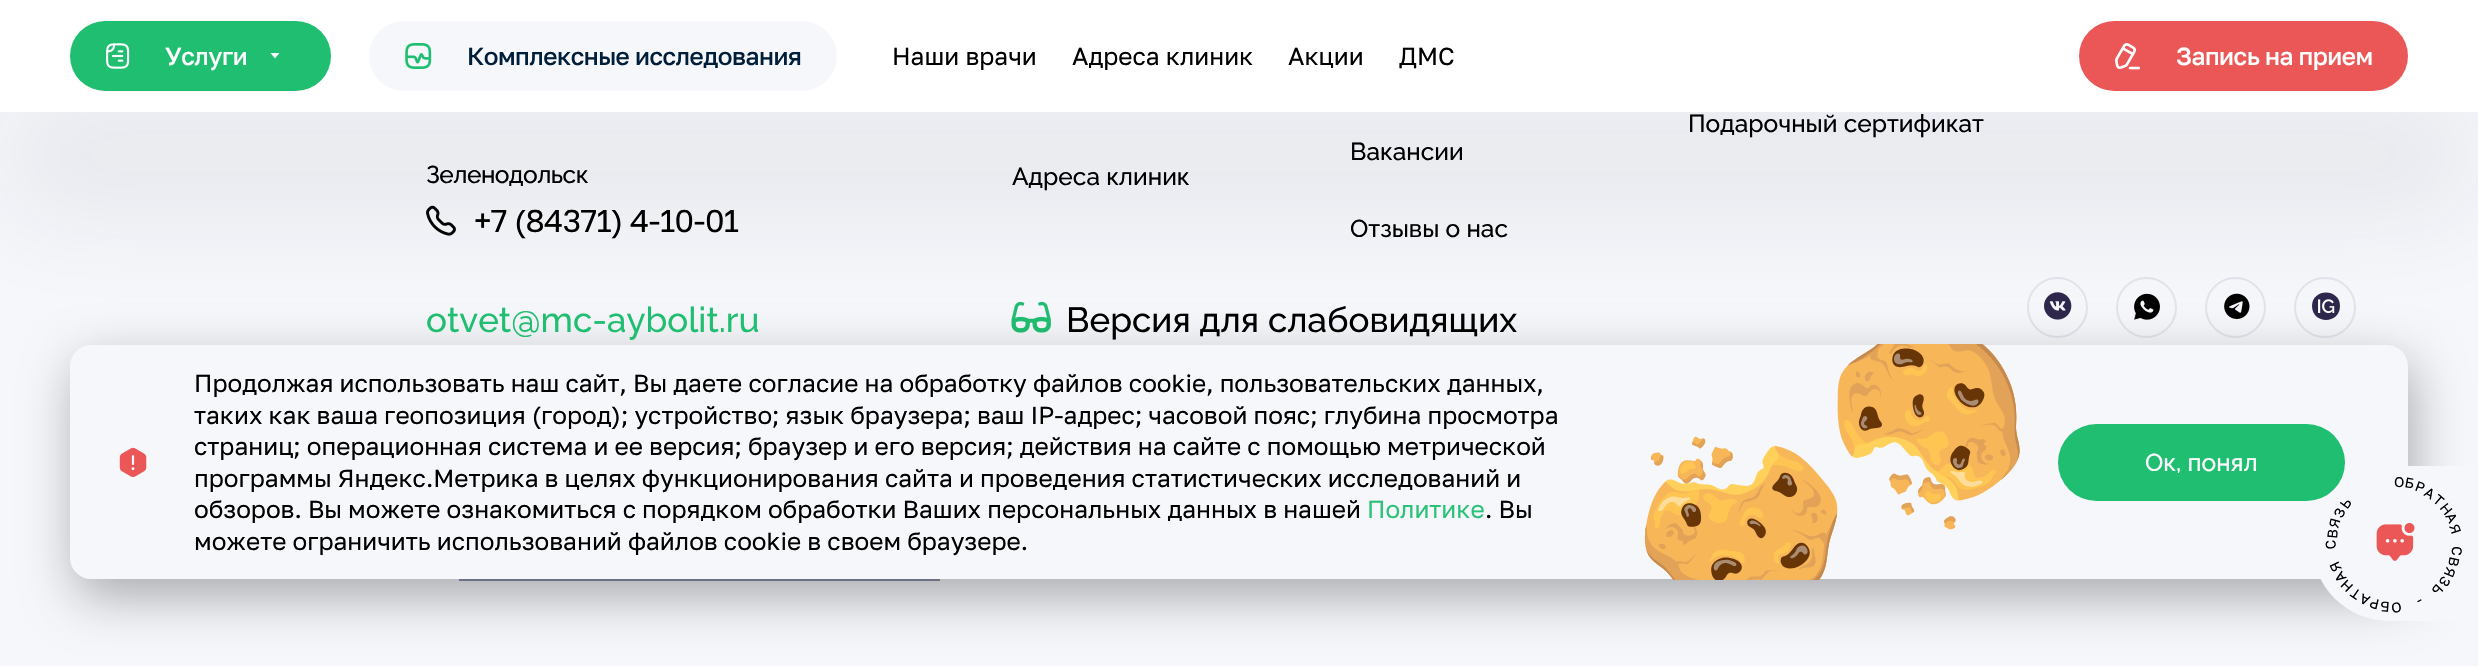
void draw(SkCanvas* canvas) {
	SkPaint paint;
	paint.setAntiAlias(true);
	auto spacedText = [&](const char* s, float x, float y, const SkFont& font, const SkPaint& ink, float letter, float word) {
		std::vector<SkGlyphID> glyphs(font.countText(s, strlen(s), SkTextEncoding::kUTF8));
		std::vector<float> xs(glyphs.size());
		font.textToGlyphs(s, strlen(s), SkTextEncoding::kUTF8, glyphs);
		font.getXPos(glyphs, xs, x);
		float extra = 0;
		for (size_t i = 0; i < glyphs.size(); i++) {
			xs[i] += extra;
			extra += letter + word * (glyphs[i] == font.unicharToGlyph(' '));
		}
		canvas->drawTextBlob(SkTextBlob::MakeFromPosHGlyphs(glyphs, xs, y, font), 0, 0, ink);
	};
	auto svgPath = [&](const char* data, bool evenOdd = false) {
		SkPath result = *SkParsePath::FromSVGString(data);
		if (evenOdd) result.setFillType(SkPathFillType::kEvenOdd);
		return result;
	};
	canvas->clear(0xfff6f7fb);
	canvas->drawImageRect(SkImages::DeferredFromEncodedData(SkData::MakeFromFileName("img4.png")), SkRect::MakeXYWH(426, 205, 30, 31), SkSamplingOptions());
	canvas->drawImageRect(SkImages::DeferredFromEncodedData(SkData::MakeFromFileName("img5.png")), SkRect::MakeXYWH(1011, 301, 40, 32), SkSamplingOptions());
	paint.setStroke(true);
	paint.setStrokeWidth(2);
	paint.setColor(0xffe0e4eb);
	canvas->drawCircle(2057.5, 307.5, 29.5, paint);
	canvas->drawImageRect(SkImages::DeferredFromEncodedData(SkData::MakeFromFileName("img6.png")), SkRect::MakeXYWH(2044, 292, 28, 28), SkSamplingOptions());
	canvas->drawCircle(2146.5, 307.5, 29.5, paint);
	canvas->drawImageRect(SkImages::DeferredFromEncodedData(SkData::MakeFromFileName("img7.png")), SkRect::MakeXYWH(2134, 293, 26, 27), SkSamplingOptions());
	canvas->drawCircle(2235.5, 307.5, 29.5, paint);
	canvas->drawImageRect(SkImages::DeferredFromEncodedData(SkData::MakeFromFileName("img8.png")), SkRect::MakeXYWH(2224, 293, 26, 26), SkSamplingOptions());
	canvas->drawRoundRect(SkRect::MakeXYWH(2295, 278, 60, 59), 29.5, 29.5, paint);
	paint.setStroke(false);
	paint.setColor(0xff2d264b);
	canvas->drawPath(svgPath("M2340 306C2340 324.5 2312 324.5 2312 306C2312 288 2340 288 2340 306Z"), paint);
	canvas->drawImageRect(SkImages::DeferredFromEncodedData(SkData::MakeFromFileName("img9.png")), SkRect::MakeXYWH(2318, 299, 17, 15), SkSamplingOptions());
	paint.setColor(0xff8e94ab);
	canvas->drawRect(SkRect::MakeXYWH(459, 579, 481, 2), paint);
	paint.setColor(0x4f000000);
	paint.setMaskFilter(SkMaskFilter::MakeBlur(kNormal_SkBlurStyle, 25.5));
	canvas->drawRoundRect(SkRect::MakeXYWH(75, 362, 2338, 235), 21, 21, paint);
	paint.setMaskFilter(nullptr);
	paint.setColor(0xfff6f7fb);
	canvas->drawRoundRect(SkRect::MakeXYWH(70, 345, 2338, 234), 21, 21, paint);
	canvas->drawImageRect(SkImages::DeferredFromEncodedData(SkData::MakeFromFileName("img11.png")), SkRect::MakeXYWH(1644, 344, 376, 236), SkSamplingOptions());
	paint.setColor(0x14162233);
	paint.setMaskFilter(SkMaskFilter::MakeBlur(kNormal_SkBlurStyle, 56));
	canvas->drawRect(SkRect::MakeXYWH(0, 98, 2478, 112), paint);
	paint.setMaskFilter(nullptr);
	paint.setColor(0xffffffff);
	canvas->drawRect(SkRect::MakeXYWH(0, 0, 2478, 112), paint);
	paint.setColor(0xff1fbe70);
	canvas->drawRoundRect(SkRect::MakeXYWH(70, 21, 261, 70), 35, 35, paint);
	canvas->drawImageRect(SkImages::DeferredFromEncodedData(SkData::MakeFromFileName("img1.png")), SkRect::MakeXYWH(106, 43, 24, 26), SkSamplingOptions());
	SkFont f1(fontMgr->matchFamilyStyle("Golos", SkFontStyle(500, SkFontStyle::kNormal_Width, SkFontStyle::kUpright_Slant)), 24.5);
	f1.setSubpixel(true);
	paint.setColor(0xffffffff);
	spacedText("Услуги", 165, 65, f1, paint, -0.5, 0);
	canvas->drawPath(svgPath("M279 53H270.5L275 58.5L279 53.5Z"), paint);
	paint.setColor(0xfff6f7fb);
	canvas->drawRoundRect(SkRect::MakeXYWH(369, 21, 468, 70), 35, 35, paint);
	canvas->drawImageRect(SkImages::DeferredFromEncodedData(SkData::MakeFromFileName("img2.png")), SkRect::MakeXYWH(405, 43, 27, 26), SkSamplingOptions());
	paint.setColor(0xff011f3a);
	spacedText("Комплексные исследования", 467, 65, f1, paint, -0.5, 0);
	SkFont f2(fontMgr->matchFamilyStyle("Golos", SkFontStyle::Normal()), 24.5);
	f2.setSubpixel(true);
	paint.setColor(0xff000000);
	canvas->drawString("Наши врачи", 892, 65, f2, paint);
	canvas->drawString("Адреса клиник", 1072, 65, f2, paint);
	canvas->drawString("Акции", 1288, 65, f2, paint);
	canvas->drawString("ДМС", 1399, 65, f2, paint);
	paint.setColor(0xffeb5757);
	canvas->drawRoundRect(SkRect::MakeXYWH(2079, 21, 329, 70), 35, 35, paint);
	canvas->drawImageRect(SkImages::DeferredFromEncodedData(SkData::MakeFromFileName("img3.png")), SkRect::MakeXYWH(2115, 43, 26, 27), SkSamplingOptions());
	paint.setColor(0xffffffff);
	spacedText("Запись на прием", 2176, 65, f1, paint, -0.5, 0);
	SkFont f3(fontMgr->matchFamilyStyle("Raleway", SkFontStyle(500, SkFontStyle::kNormal_Width, SkFontStyle::kUpright_Slant)), 24.5);
	f3.setSubpixel(true);
	paint.setColor(0xff000000);
	spacedText("Зеленодольск", 426, 183, f3, paint, -0.5, 0);
	SkFont f4(fontMgr->matchFamilyStyle("Golos", SkFontStyle::Normal()), 31.5);
	f4.setSubpixel(true);
	spacedText("+7 (84371) 4-10-01", 474, 232, f4, paint, -0.6, 0);
	canvas->drawString("Подарочный сертификат", 1688, 132, f3, paint);
	canvas->drawString("Адреса клиник", 1012, 185, f3, paint);
	canvas->drawString("Вакансии", 1350, 160, f3, paint);
	canvas->drawString("Отзывы о нас", 1350, 237, f3, paint);
	SkFont f5(fontMgr->matchFamilyStyle("Raleway", SkFontStyle(500, SkFontStyle::kNormal_Width, SkFontStyle::kUpright_Slant)), 35);
	f5.setSubpixel(true);
	paint.setColor(0xff1fbe70);
	canvas->drawString("otvet@mc-aybolit.ru", 426, 332, f5, paint);
	paint.setColor(0xff000000);
	canvas->drawString("Версия для слабовидящих", 1066, 332, f5, paint);
	canvas->drawImageRect(SkImages::DeferredFromEncodedData(SkData::MakeFromFileName("img10.png")), SkRect::MakeXYWH(119, 447, 28, 30), SkSamplingOptions());
	canvas->drawString("Продолжая использовать наш сайт, Вы даете согласие на обработку файлов cookie, пользовательских данных,", 194, 392, f2, paint);
	canvas->drawString("таких как ваша геопозиция (город); устройство; язык браузера; ваш IP-адрес; часовой пояс; глубина просмотра", 194, 424, f2, paint);
	canvas->drawString("страниц; операционная система и ее версия; браузер и его версия; действия на сайте с помощью метрической", 194, 455, f2, paint);
	canvas->drawString("программы Яндекс.Метрика в целях функционирования сайта и проведения статистических исследований и", 194, 487, f2, paint);
	canvas->drawString("обзоров. Вы можете ознакомиться с порядком обработки Ваших персональных данных в нашей", 194, 518, f2, paint);
	paint.setColor(0xff2cc379);
	canvas->drawString("Политике", 1367, 518, f2, paint);
	paint.setColor(0xff000000);
	canvas->drawString(". Вы", 1485, 518, f2, paint);
	canvas->drawString("можете ограничить использований файлов cookie в своем браузере.", 194, 550, f2, paint);
	paint.setColor(0xff1fbe70);
	canvas->drawRoundRect(SkRect::MakeXYWH(2058, 424, 287, 77), 38.5, 38.5, paint);
	paint.setColor(0xffffffff);
	canvas->drawString("Ок, понял", 2145, 471, f3, paint);
	paint.setColor(0xfff6f7fb);
	canvas->drawPath(svgPath("M2389.5 466H2478V621H2389.5C2346.5 621 2312 586.5 2312 543.5C2312 500.5 2346.5 466 2389.5 466Z"), paint);
	SkFont f6(fontMgr->matchFamilyStyle("Golos", SkFontStyle::Normal()), 14);
	f6.setSubpixel(true);
	paint.setColor(0xff000000);
	canvas->drawString("О", 2394, 487, f6, paint);
	canvas->save();
	canvas->rotate(10.2, 2404, 487);
	canvas->drawString("Б", 2404, 487, f6, paint);
	canvas->restore();
	canvas->save();
	canvas->rotate(20.4, 2414, 490);
	canvas->drawString("Р", 2414, 490, f6, paint);
	canvas->restore();
	canvas->save();
	canvas->rotate(-54, 2347, 510);
	canvas->drawString("Ь", 2347, 510, f6, paint);
	canvas->restore();
	canvas->save();
	canvas->rotate(30.6, 2423, 495);
	canvas->drawString("А", 2423, 495, f6, paint);
	canvas->restore();
	canvas->save();
	canvas->rotate(40.8, 2432, 501);
	canvas->drawString("Т", 2432, 501, f6, paint);
	canvas->restore();
	canvas->save();
	canvas->rotate(-64.2, 2342, 519);
	canvas->drawString("З", 2342, 519, f6, paint);
	canvas->restore();
	canvas->save();
	canvas->rotate(51, 2439, 508);
	canvas->drawString("Н", 2439, 508, f6, paint);
	canvas->restore();
	canvas->save();
	canvas->rotate(-74.4, 2338, 529);
	canvas->drawString("Я", 2338, 529, f6, paint);
	canvas->restore();
	canvas->save();
	canvas->rotate(61.2, 2445, 516);
	canvas->drawString("А", 2445, 516, f6, paint);
	canvas->restore();
	canvas->save();
	canvas->rotate(-84.6, 2337, 539);
	canvas->drawString("В", 2337, 539, f6, paint);
	canvas->restore();
	canvas->save();
	canvas->rotate(71.4, 2449, 526);
	canvas->drawString("Я", 2449, 526, f6, paint);
	canvas->restore();
	canvas->save();
	canvas->rotate(-94.8, 2336, 549);
	canvas->drawString("С", 2336, 549, f6, paint);
	canvas->restore();
	canvas->save();
	canvas->rotate(91.8, 2452, 546);
	canvas->drawString("С", 2452, 546, f6, paint);
	canvas->restore();
	canvas->save();
	canvas->rotate(-115.2, 2342, 569);
	canvas->drawString("Я", 2342, 569, f6, paint);
	canvas->restore();
	canvas->save();
	canvas->rotate(102, 2450, 556);
	canvas->drawString("В", 2450, 556, f6, paint);
	canvas->restore();
	canvas->save();
	canvas->rotate(-125.4, 2347, 578);
	canvas->drawString("А", 2347, 578, f6, paint);
	canvas->restore();
	canvas->save();
	canvas->rotate(112.2, 2447, 566);
	canvas->drawString("Я", 2447, 566, f6, paint);
	canvas->restore();
	canvas->save();
	canvas->rotate(-135.6, 2354, 586);
	canvas->drawString("Н", 2354, 586, f6, paint);
	canvas->restore();
	canvas->save();
	canvas->rotate(-145.8, 2362, 592);
	canvas->drawString("Т", 2362, 592, f6, paint);
	canvas->restore();
	canvas->save();
	canvas->rotate(-166.2, 2380, 600);
	canvas->drawString("Р", 2380, 600, f6, paint);
	canvas->restore();
	canvas->save();
	canvas->rotate(-156, 2371, 597);
	canvas->drawString("А", 2371, 597, f6, paint);
	canvas->restore();
	canvas->save();
	canvas->rotate(-176.4, 2390, 602);
	canvas->drawString("Б", 2390, 602, f6, paint);
	canvas->restore();
	canvas->save();
	canvas->rotate(173.4, 2401, 602);
	canvas->drawString("О", 2401, 602, f6, paint);
	canvas->restore();
	canvas->save();
	canvas->rotate(153, 2420, 596);
	canvas->drawString("-", 2420, 596, f6, paint);
	canvas->restore();
	canvas->save();
	canvas->rotate(132.6, 2437, 583);
	canvas->drawString("Ь", 2437, 583, f6, paint);
	canvas->restore();
	canvas->save();
	canvas->rotate(122.4, 2443, 575);
	canvas->drawString("З", 2443, 575, f6, paint);
	canvas->restore();
	canvas->drawImageRect(SkImages::DeferredFromEncodedData(SkData::MakeFromFileName("img12.png")), SkRect::MakeXYWH(2376, 523, 39, 38), SkSamplingOptions());
}
